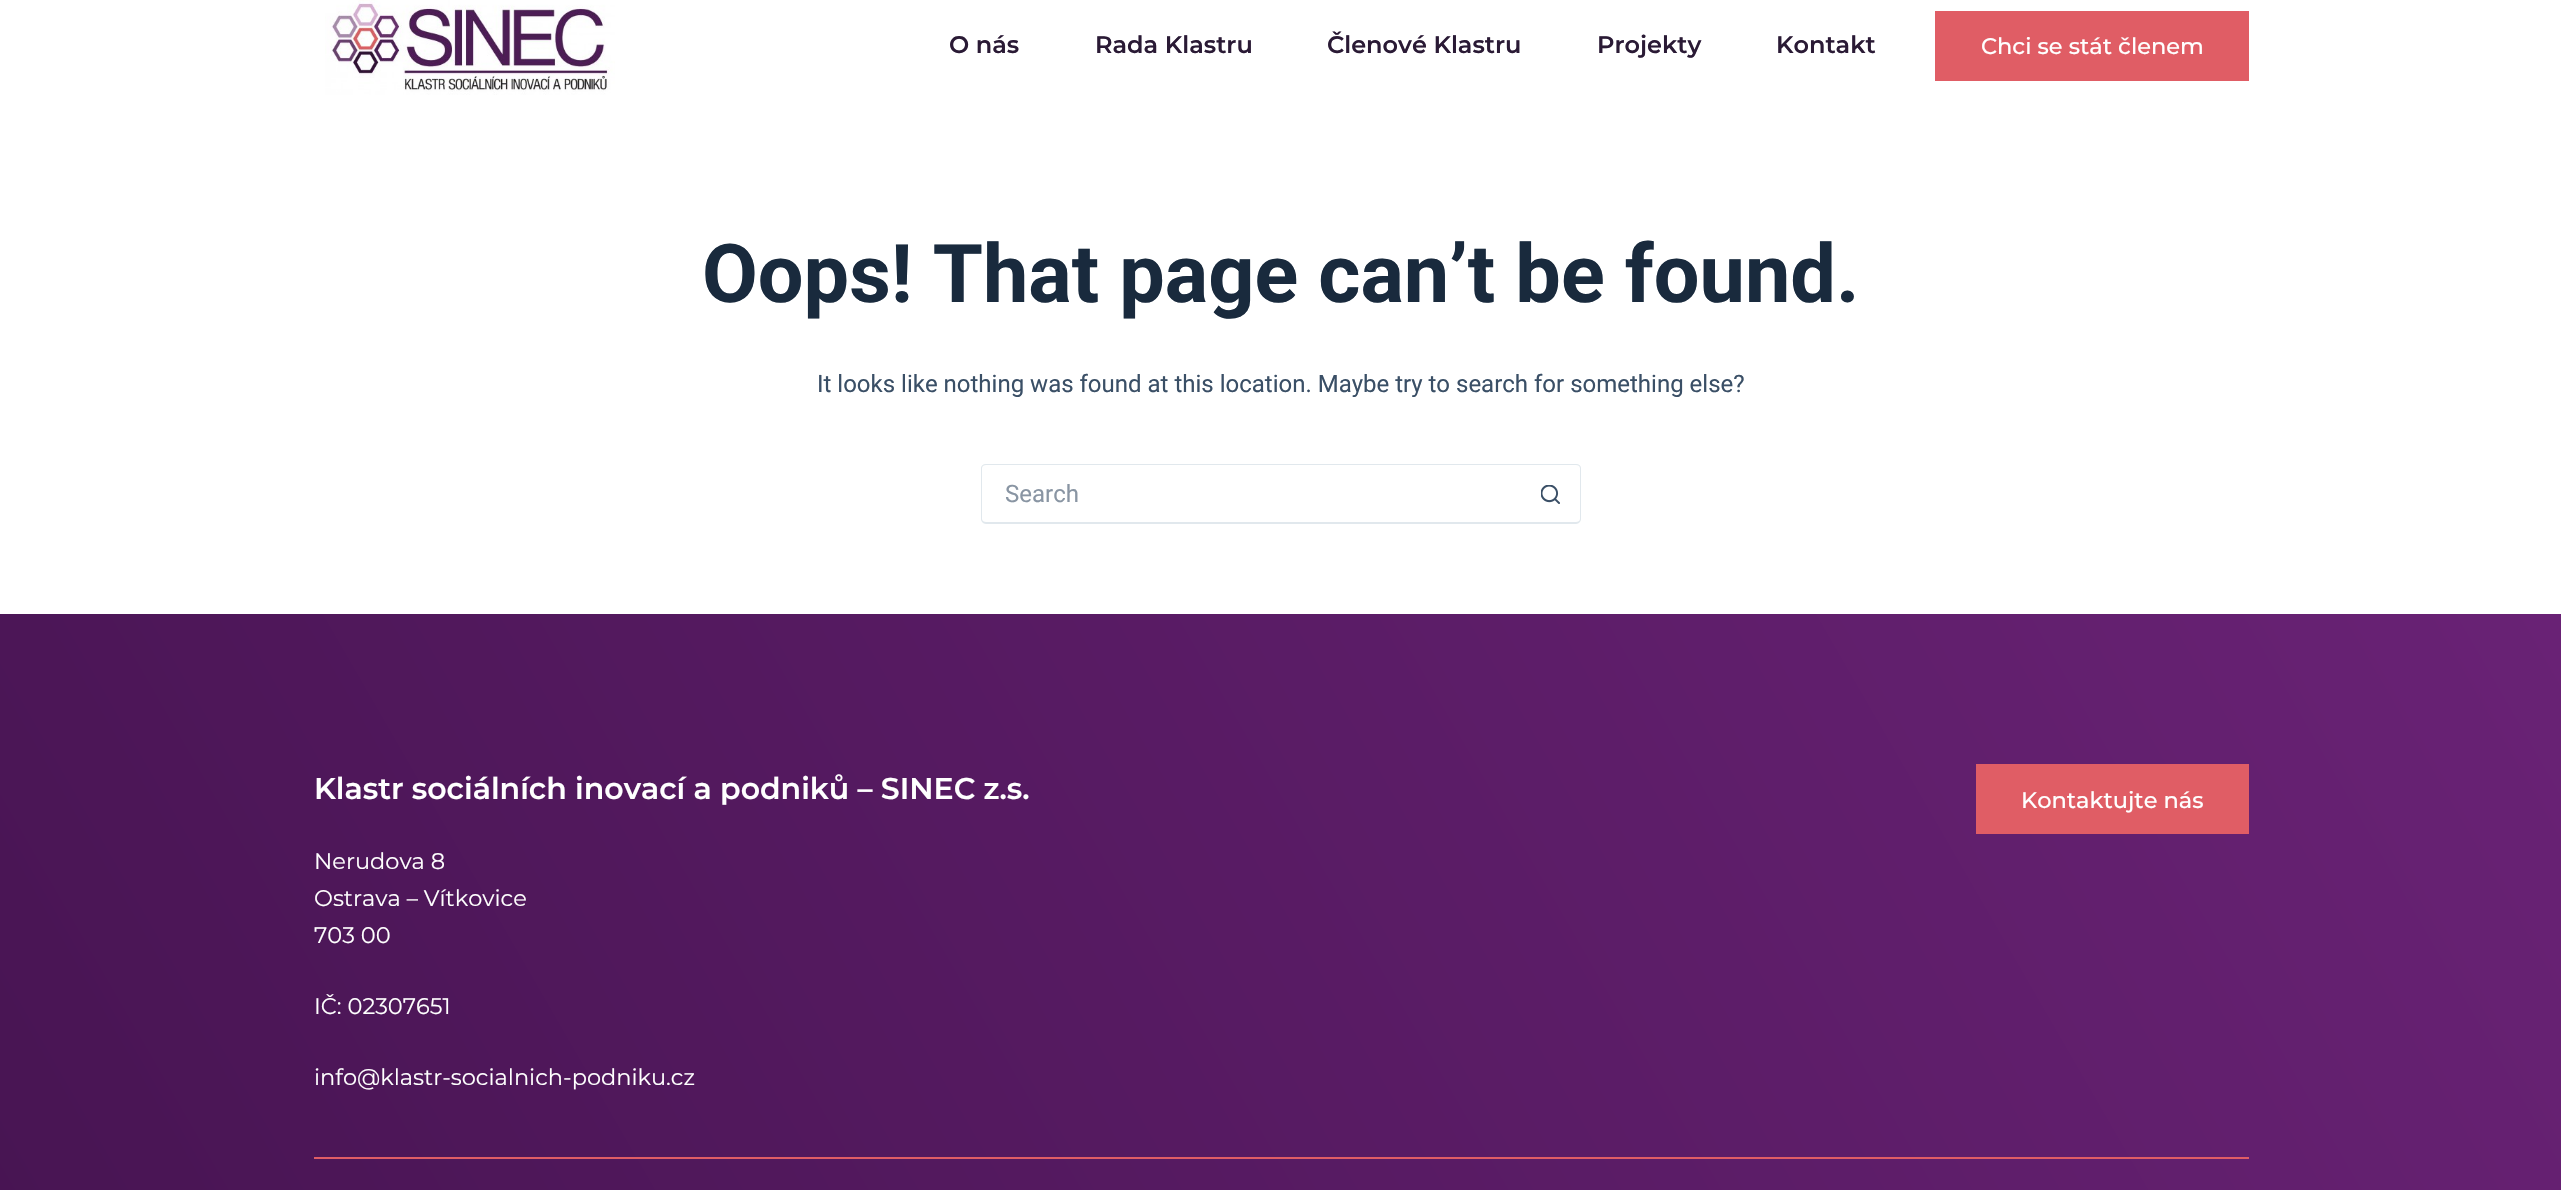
void draw(SkCanvas* canvas) {
	SkPaint paint;
	paint.setAntiAlias(true);
	auto svgPath = [&](const char* data, bool evenOdd = false) {
		SkPath result = *SkParsePath::FromSVGString(data);
		if (evenOdd) result.setFillType(SkPathFillType::kEvenOdd);
		return result;
	};
	canvas->clear(0xffffffff);
	canvas->drawImageRect(SkImages::DeferredFromEncodedData(SkData::MakeFromFileName("img1.png")), SkRect::MakeXYWH(325, 0, 290, 95), SkSamplingOptions());
	SkFont f1(fontMgr->matchFamilyStyle("Montserrat", SkFontStyle(600, SkFontStyle::kNormal_Width, SkFontStyle::kUpright_Slant)), 24);
	f1.setSubpixel(true);
	paint.setColor(0xff2a1a35);
	canvas->drawString("O nás", 949, 53, f1, paint);
	canvas->drawString("Rada Klastru", 1095, 53, f1, paint);
	canvas->drawString("Členové Klastru", 1327, 53, f1, paint);
	canvas->drawString("Projekty", 1597, 53, f1, paint);
	canvas->drawString("Kontakt", 1776, 53, f1, paint);
	paint.setColor(0xffe05d65);
	canvas->drawRect(SkRect::MakeXYWH(1935, 11, 314, 70), paint);
	SkFont f2(fontMgr->matchFamilyStyle("Montserrat", SkFontStyle(500, SkFontStyle::kNormal_Width, SkFontStyle::kUpright_Slant)), 22.5);
	f2.setSubpixel(true);
	paint.setColor(0xffffffff);
	canvas->drawString("Chci se stát členem", 1981, 54, f2, paint);
	SkFont f3(fontMgr->matchFamilyStyle("Roboto", SkFontStyle::Bold()), 81);
	f3.setSubpixel(true);
	paint.setColor(0xff192a3d);
	canvas->drawString("Oops! That page can’t be found.", 702, 302, f3, paint);
	SkFont f4(fontMgr->matchFamilyStyle("Roboto", SkFontStyle::Normal()), 24);
	f4.setSubpixel(true);
	paint.setColor(0xff3a4f66);
	canvas->drawString("It looks like nothing was found at this location. Maybe try to search for something else?", 817, 392, f4, paint);
	paint.setColor(0xffe1e8ed);
	canvas->drawPath(svgPath("M986 464H1521V524H986C983 524 981 521 981 519V468C981 466 983 464 986 464ZM986 465H1521V522H986C984 522 982 521 982 519V468C982 466 984 465 986 465Z", true), paint);
	paint.setColor(0xff8995a3);
	canvas->drawString("Search", 1005, 502, f4, paint);
	paint.setColor(0xffe1e8ed);
	canvas->drawPath(svgPath("M1521 464H1576C1579 464 1581 466 1581 468V519C1581 521 1579 524 1576 524H1521ZM1521 465H1576C1578 465 1580 466 1580 468V519C1580 521 1578 522 1576 522H1521Z", true), paint);
	canvas->drawImageRect(SkImages::DeferredFromEncodedData(SkData::MakeFromFileName("img2.png")), SkRect::MakeXYWH(1541, 485, 19, 19), SkSamplingOptions());
	{
		const SkColor colors[] = {0xff692275, 0xff471452};
		const float stops[] = {0, 1};
		const SkPoint ends[] = {{2401, 334}, {161, 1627}};
		paint.setShader(SkGradientShader::MakeLinear(ends, colors, stops, 2, SkTileMode::kClamp));
		paint.setAlpha(255);
	}
	canvas->drawRect(SkRect::MakeXYWH(0, 614, 2561, 576), paint);
	SkFont f5(fontMgr->matchFamilyStyle("Montserrat", SkFontStyle(600, SkFontStyle::kNormal_Width, SkFontStyle::kUpright_Slant)), 30);
	f5.setSubpixel(true);
	paint.setShader(nullptr);
	paint.setColor(0xffffffff);
	canvas->drawString("Klastr sociálních inovací a podniků – SINEC z.s.", 314, 799, f5, paint);
	SkFont f6(fontMgr->matchFamilyStyle("Montserrat", SkFontStyle::Normal()), 22.5);
	f6.setSubpixel(true);
	canvas->drawString("Nerudova 8", 314, 869, f6, paint);
	canvas->drawString("Ostrava – Vítkovice", 314, 906, f6, paint);
	canvas->drawString("703 00", 314, 943, f6, paint);
	canvas->drawString("IČ: 02307651", 314, 1014, f6, paint);
	canvas->drawString("info@klastr-socialnich-podniku.cz", 314, 1085, f6, paint);
	paint.setColor(0xffe05d65);
	canvas->drawRect(SkRect::MakeXYWH(1976, 764, 273, 70), paint);
	paint.setColor(0xffffffff);
	canvas->drawString("Kontaktujte nás", 2021, 808, f2, paint);
	paint.setColor(0xffe05d65);
	canvas->drawRect(SkRect::MakeXYWH(314, 1157, 1935, 2), paint);
}
